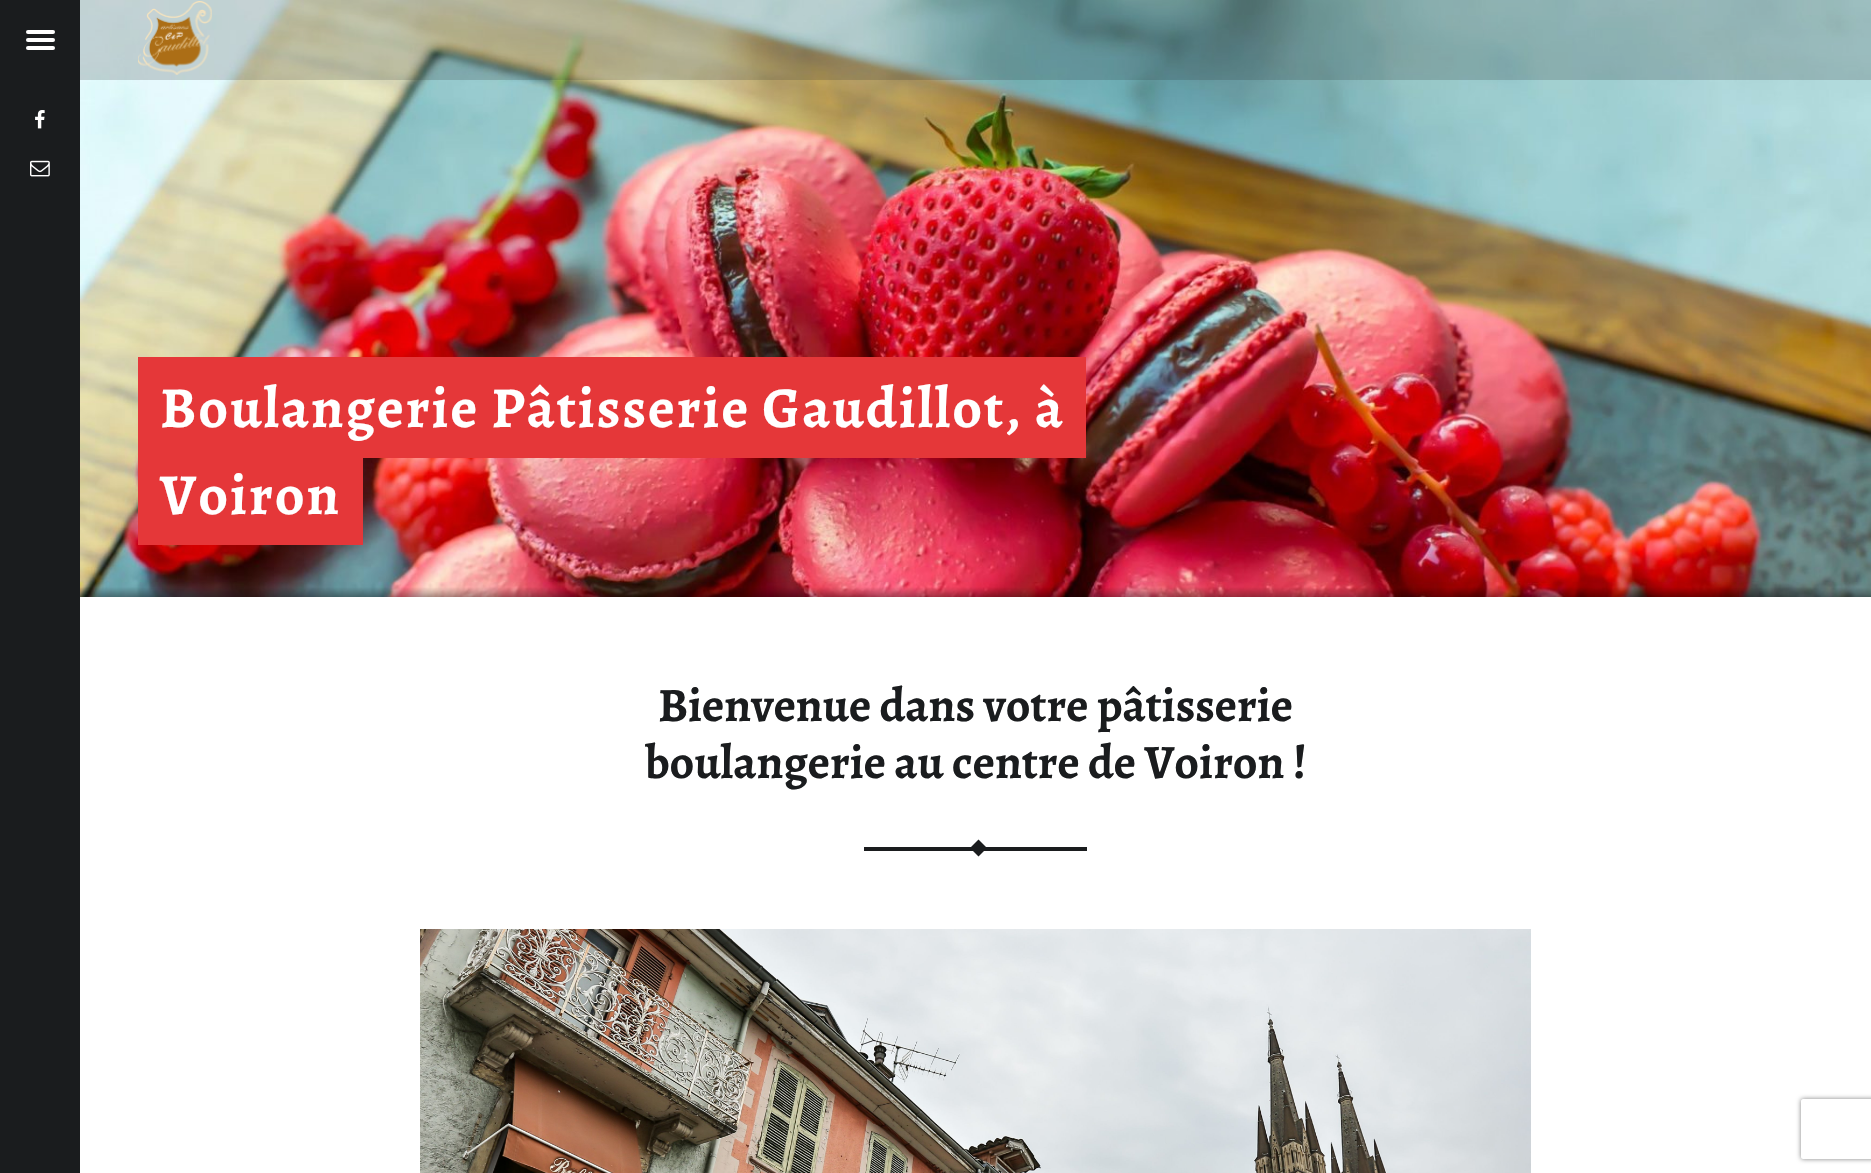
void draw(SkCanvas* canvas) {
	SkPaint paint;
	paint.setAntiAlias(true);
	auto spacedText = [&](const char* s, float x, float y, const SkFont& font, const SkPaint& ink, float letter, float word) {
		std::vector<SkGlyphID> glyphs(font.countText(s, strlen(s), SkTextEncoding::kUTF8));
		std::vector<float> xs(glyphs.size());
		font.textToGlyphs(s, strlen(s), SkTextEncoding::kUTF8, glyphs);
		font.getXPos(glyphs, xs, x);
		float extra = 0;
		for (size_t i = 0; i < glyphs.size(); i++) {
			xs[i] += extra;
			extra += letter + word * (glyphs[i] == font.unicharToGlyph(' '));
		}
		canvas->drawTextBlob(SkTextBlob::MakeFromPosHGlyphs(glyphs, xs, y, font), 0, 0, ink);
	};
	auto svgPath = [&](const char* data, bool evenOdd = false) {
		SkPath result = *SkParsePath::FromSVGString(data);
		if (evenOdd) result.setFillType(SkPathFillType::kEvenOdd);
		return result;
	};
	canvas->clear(0xffffffff);
	paint.setColor(0xff1a1c1e);
	canvas->drawRect(SkRect::MakeXYWH(0, 0, 80, 1173), paint);
	paint.setColor(0xffffffff);
	canvas->drawRoundRect(SkRect::MakeXYWH(26, 30, 29, 4), 2, 2, paint);
	canvas->drawRoundRect(SkRect::MakeXYWH(26, 38, 29, 4), 2, 2, paint);
	canvas->drawRoundRect(SkRect::MakeXYWH(26, 46, 29, 4), 2, 2, paint);
	canvas->drawImageRect(SkImages::DeferredFromEncodedData(SkData::MakeFromFileName("img1.png")), SkRect::MakeXYWH(35, 110, 10, 19), SkSamplingOptions());
	canvas->drawImageRect(SkImages::DeferredFromEncodedData(SkData::MakeFromFileName("img2.png")), SkRect::MakeXYWH(30, 160, 20, 17), SkSamplingOptions());
	canvas->drawImageRect(SkImages::DeferredFromEncodedData(SkData::MakeFromFileName("img4.png")), SkRect::MakeXYWH(80, 0, 1791, 597), SkSamplingOptions());
	paint.setColor(0x332a2c2e);
	canvas->drawRect(SkRect::MakeXYWH(80, 0, 1791, 80), paint);
	canvas->drawImageRect(SkImages::DeferredFromEncodedData(SkData::MakeFromFileName("img3.png")), SkRect::MakeXYWH(138, 1, 74, 74), SkSamplingOptions());
	paint.setColor(0xffe53739);
	canvas->drawRect(SkRect::MakeXYWH(160, 357, 926, 101), paint);
	SkFont f1(fontMgr->matchFamilyStyle("Alegreya", SkFontStyle::Bold()), 57.9);
	f1.setSubpixel(true);
	paint.setColor(0xffffffff);
	spacedText("Boulangerie Pâtisserie Gaudillot, à", 160, 427, f1, paint, 2, 0);
	paint.setColor(0xffe53739);
	canvas->drawRect(SkRect::MakeXYWH(138, 357, 22, 188), paint);
	canvas->drawRect(SkRect::MakeXYWH(160, 458, 203, 87), paint);
	paint.setColor(0xffffffff);
	spacedText("Voiron", 160, 514, f1, paint, 2, 0);
	SkFont f2(fontMgr->matchFamilyStyle("Alegreya", SkFontStyle::Bold()), 48);
	f2.setSubpixel(true);
	paint.setColor(0xff1a1c1e);
	canvas->drawString("Bienvenue dans votre pâtisserie", 658, 721, f2, paint);
	canvas->drawString("boulangerie au centre de Voiron !", 645, 778, f2, paint);
	canvas->drawRect(SkRect::MakeXYWH(864, 847, 223, 4), paint);
	canvas->drawPath(svgPath("M978.5 839.5L987 848L978.5 856.5L970 848Z"), paint);
	canvas->drawImageRect(SkImages::DeferredFromEncodedData(SkData::MakeFromFileName("img5.png")), SkRect::MakeXYWH(420, 929, 1111, 244), SkSamplingOptions());
	canvas->save();
	canvas->clipPath(svgPath("M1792 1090H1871V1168H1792ZM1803 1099H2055C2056 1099 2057 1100 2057 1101V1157C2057 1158 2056 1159 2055 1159H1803C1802 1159 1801 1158 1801 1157V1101C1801 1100 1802 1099 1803 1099Z", true), true);
	paint.setColor(0xff808080);
	paint.setMaskFilter(SkMaskFilter::MakeBlur(kNormal_SkBlurStyle, 2.5));
	canvas->drawRoundRect(SkRect::MakeXYWH(1801, 1099, 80, 60), 2, 2, paint);
	paint.setMaskFilter(nullptr);
	canvas->restore();
}
